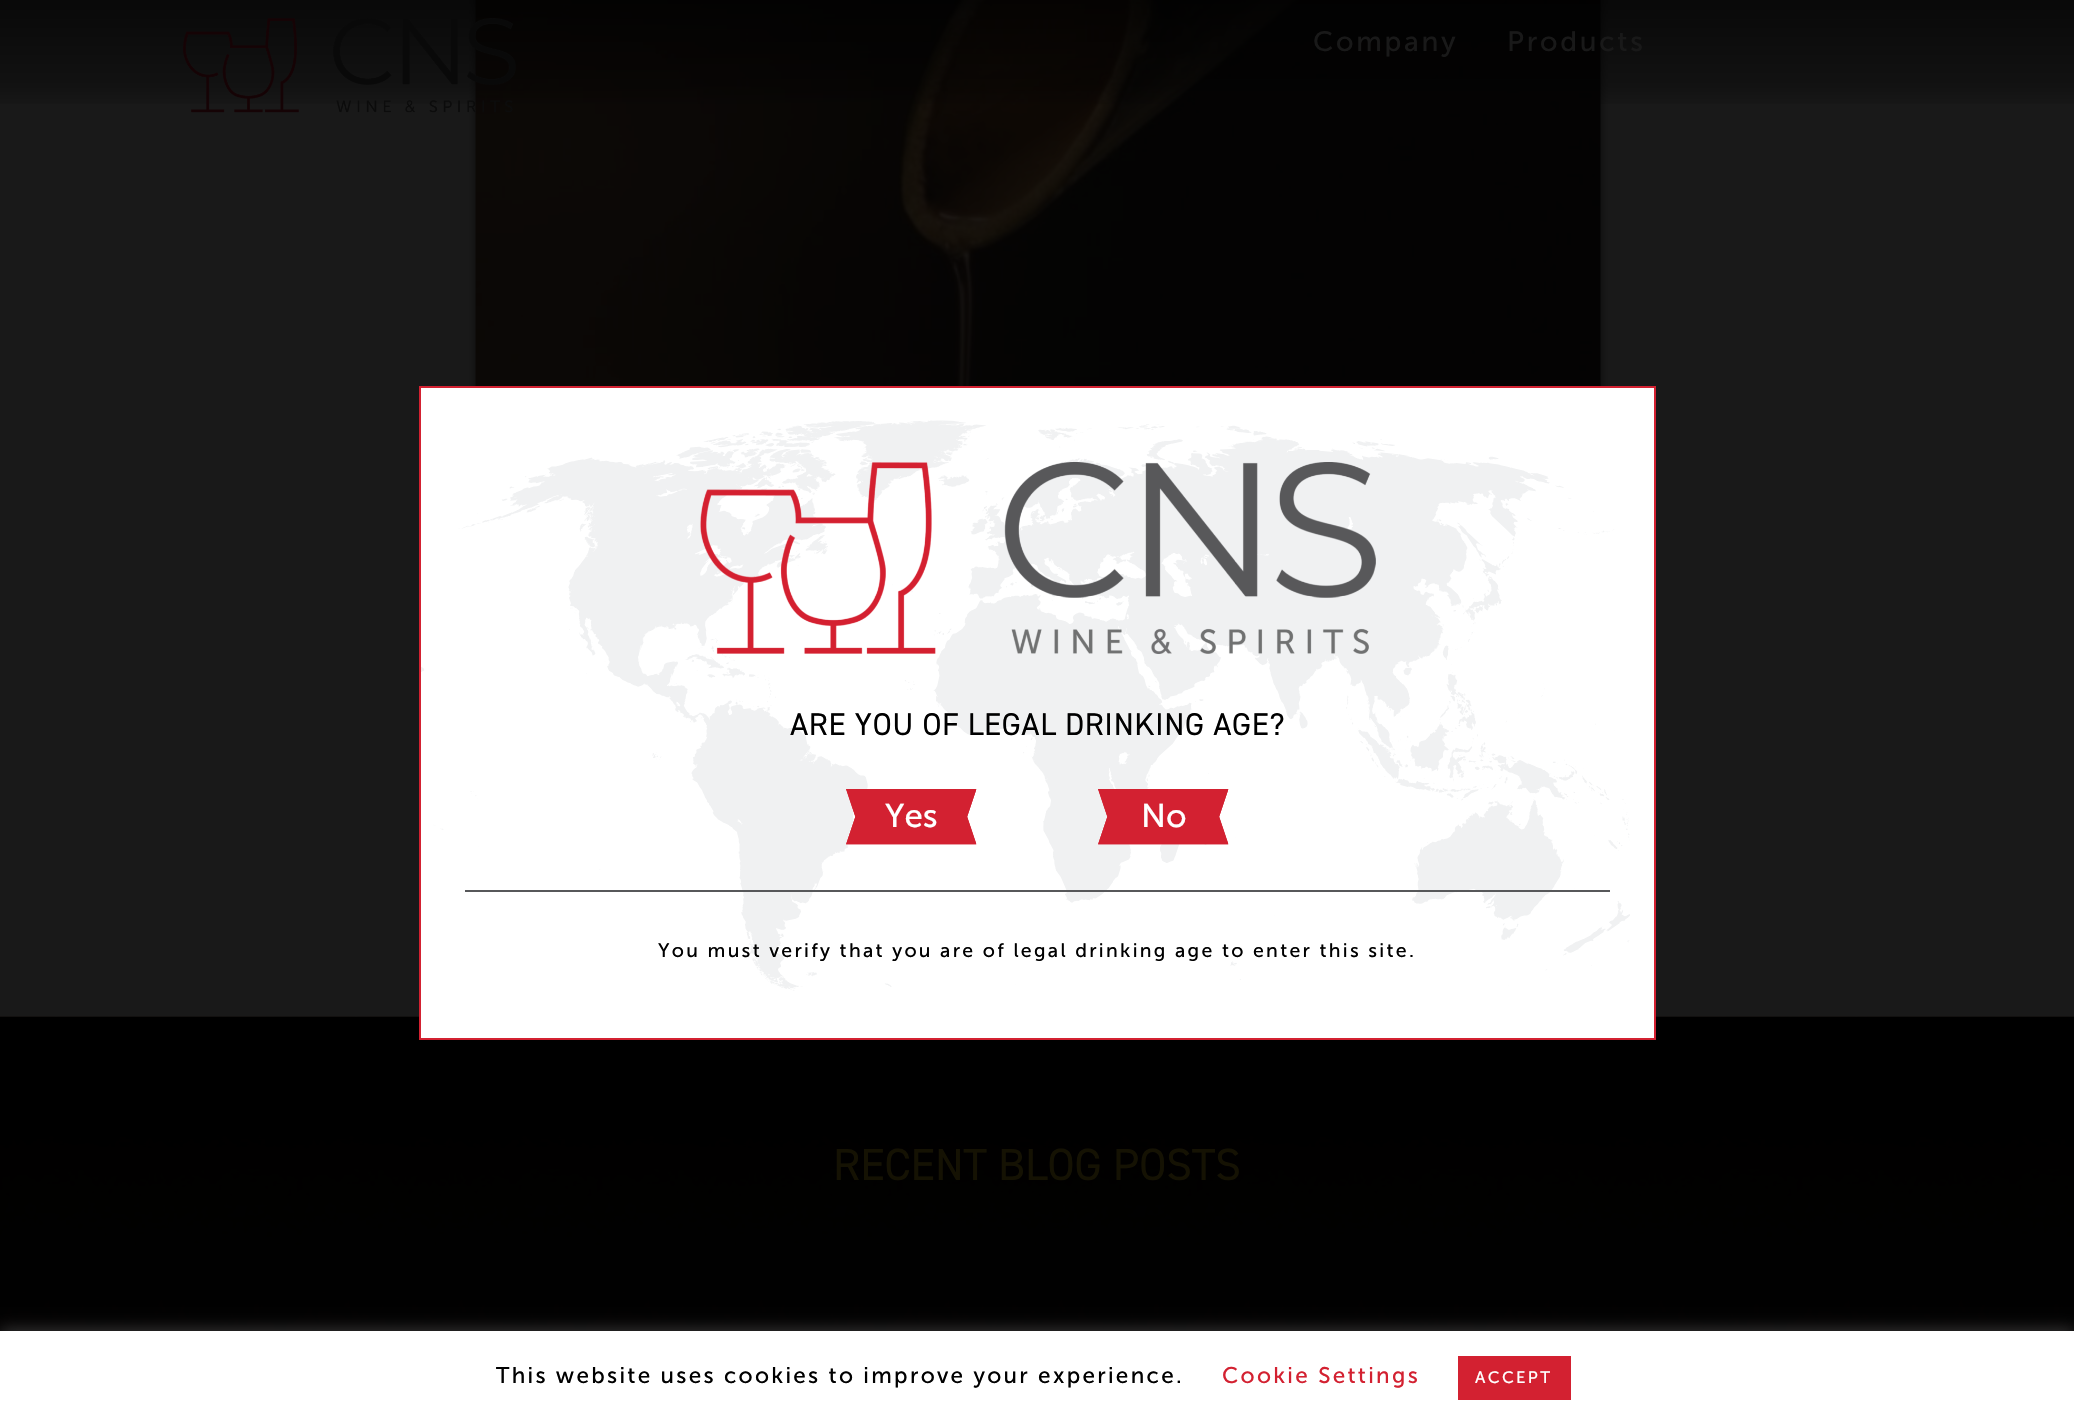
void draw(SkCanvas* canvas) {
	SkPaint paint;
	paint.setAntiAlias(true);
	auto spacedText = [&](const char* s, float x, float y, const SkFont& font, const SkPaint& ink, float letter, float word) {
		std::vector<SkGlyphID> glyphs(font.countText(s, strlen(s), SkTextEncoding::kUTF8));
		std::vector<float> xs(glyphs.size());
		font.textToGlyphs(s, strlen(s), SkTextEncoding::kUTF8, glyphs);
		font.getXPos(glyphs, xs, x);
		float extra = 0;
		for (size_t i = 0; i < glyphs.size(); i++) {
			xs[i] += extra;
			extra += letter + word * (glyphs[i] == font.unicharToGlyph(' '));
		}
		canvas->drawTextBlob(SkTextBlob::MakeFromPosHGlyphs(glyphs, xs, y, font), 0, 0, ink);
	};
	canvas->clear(0xff191919);
	paint.setColor(0x80000000);
	paint.setMaskFilter(SkMaskFilter::MakeBlur(kNormal_SkBlurStyle, 4));
	canvas->drawRect(SkRect::MakeXYWH(476, -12, 1125, 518), paint);
	paint.setMaskFilter(nullptr);
	canvas->drawImageRect(SkImages::DeferredFromEncodedData(SkData::MakeFromFileName("img2.png")), SkRect::MakeXYWH(475, 0, 1126, 386), SkSamplingOptions());
	{
		const SkColor colors[] = {0xe6000000, 0xb3000000, 0x4d000000, 0x00000000};
		const float stops[] = {0, 0.35, 0.85, 1};
		const SkPoint ends[] = {{1037, -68}, {1037, 113}};
		paint.setShader(SkGradientShader::MakeLinear(ends, colors, stops, 4, SkTileMode::kClamp));
		paint.setAlpha(255);
	}
	canvas->drawRect(SkRect::MakeXYWH(0, 0, 2074, 104), paint);
	canvas->drawImageRect(SkImages::DeferredFromEncodedData(SkData::MakeFromFileName("img1.png")), SkRect::MakeXYWH(183, 18, 333, 95), SkSamplingOptions());
	SkFont f1(fontMgr->matchFamilyStyle("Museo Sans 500", SkFontStyle::Normal()), 28);
	f1.setSubpixel(true);
	paint.setShader(nullptr);
	paint.setColor(0xff191919);
	spacedText("Company", 1313, 51, f1, paint, 2.75, 0);
	spacedText("Products", 1507, 51, f1, paint, 2.75, 0);
	canvas->drawImageRect(SkImages::DeferredFromEncodedData(SkData::MakeFromFileName("img3.png")), SkRect::MakeXYWH(0, 1016, 2074, 315), SkSamplingOptions());
	SkFont f2(fontMgr->matchFamilyStyle("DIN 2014", SkFontStyle::Normal()), 45);
	f2.setSubpixel(true);
	paint.setColor(0xff151203);
	canvas->drawString("RECENT BLOG POSTS", 833, 1180, f2, paint);
	paint.setColor(0xffffffff);
	canvas->drawRect(SkRect::MakeXYWH(420, 387, 1235, 652), paint);
	paint.setStroke(true);
	paint.setStrokeWidth(2);
	paint.setColor(0xffd32131);
	canvas->drawRect(SkRect::MakeXYWH(420, 387, 1235, 652), paint);
	canvas->drawImageRect(SkImages::DeferredFromEncodedData(SkData::MakeFromFileName("img4.png")), SkRect::MakeXYWH(421, 420, 1209, 571), SkSamplingOptions());
	canvas->drawImageRect(SkImages::DeferredFromEncodedData(SkData::MakeFromFileName("img5.png")), SkRect::MakeXYWH(700, 462, 676, 192), SkSamplingOptions());
	SkFont f3(fontMgr->matchFamilyStyle("DIN 2014", SkFontStyle::Normal()), 31.5);
	f3.setSubpixel(true);
	paint.setStroke(false);
	paint.setColor(0xff000000);
	spacedText("ARE YOU OF LEGAL DRINKING AGE?", 790, 735, f3, paint, 0.6, 0);
	canvas->drawImageRect(SkImages::DeferredFromEncodedData(SkData::MakeFromFileName("img6.png")), SkRect::MakeXYWH(846, 789, 131, 56), SkSamplingOptions());
	SkFont f4(fontMgr->matchFamilyStyle("Museo Sans 500", SkFontStyle::Normal()), 33);
	f4.setSubpixel(true);
	paint.setColor(0xffffffff);
	canvas->drawString("Yes", 885, 827, f4, paint);
	canvas->drawImageRect(SkImages::DeferredFromEncodedData(SkData::MakeFromFileName("img7.png")), SkRect::MakeXYWH(1098, 789, 131, 56), SkSamplingOptions());
	canvas->drawString("No", 1141, 827, f4, paint);
	paint.setColor(0xff57585a);
	canvas->drawRect(SkRect::MakeXYWH(465, 890, 1145, 2), paint);
	SkFont f5(fontMgr->matchFamilyStyle("Museo Sans 500", SkFontStyle::Normal()), 19.5);
	f5.setSubpixel(true);
	paint.setColor(0xff000000);
	spacedText("You must verify that you are of legal drinking age to enter this site.", 658, 957, f5, paint, 2.3, 0);
	paint.setColor(0x4dacabab);
	paint.setMaskFilter(SkMaskFilter::MakeBlur(kNormal_SkBlurStyle, 7.5));
	canvas->drawRect(SkRect::MakeXYWH(0, 1329, 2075, 95), paint);
	paint.setMaskFilter(nullptr);
	paint.setColor(0xffffffff);
	canvas->drawRect(SkRect::MakeXYWH(0, 1331, 2074, 93), paint);
	SkFont f6(fontMgr->matchFamilyStyle("Museo Sans 500", SkFontStyle::Normal()), 22.5);
	f6.setSubpixel(true);
	paint.setColor(0xff000000);
	spacedText("This website uses cookies to improve your experience.", 496, 1383, f6, paint, 2.3, 0);
	paint.setColor(0xffd32131);
	spacedText("Cookie Settings", 1222, 1383, f6, paint, 2.3, 0);
	canvas->drawRect(SkRect::MakeXYWH(1458, 1356, 113, 44), paint);
	SkFont f7(fontMgr->matchFamilyStyle("Museo Sans 500", SkFontStyle::Normal()), 16.5);
	f7.setSubpixel(true);
	paint.setColor(0xffffffff);
	spacedText("ACCEPT", 1475, 1383, f7, paint, 2.3, 0);
}
